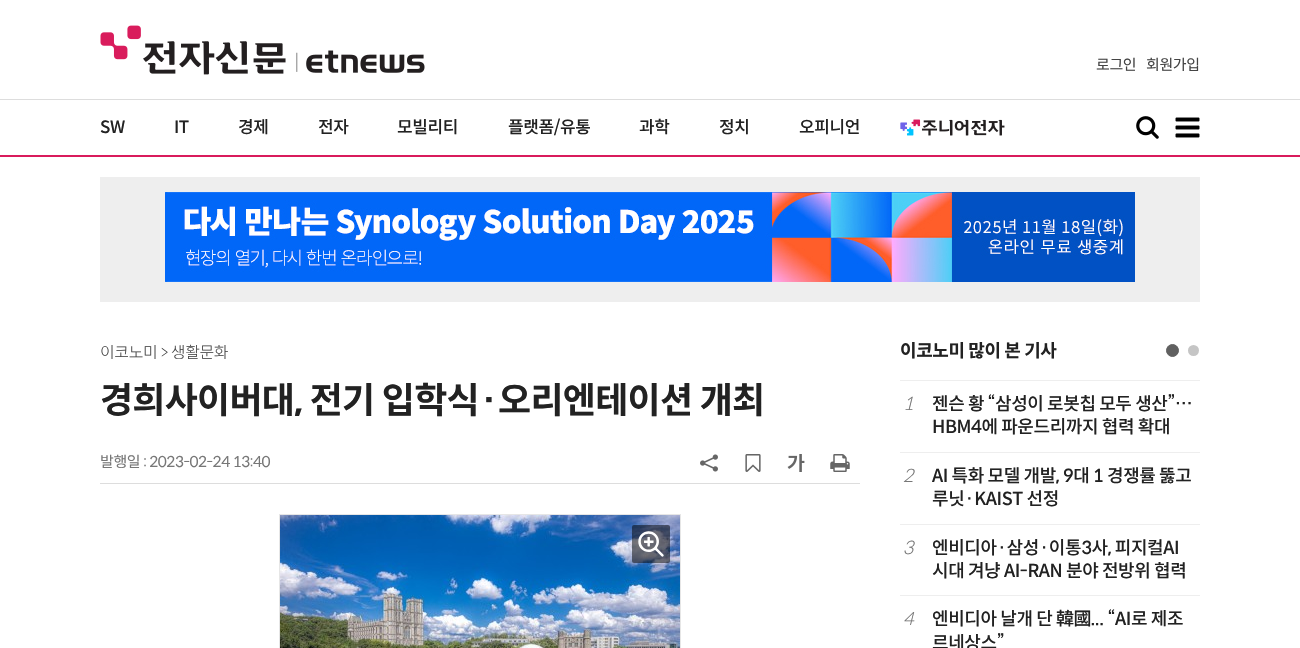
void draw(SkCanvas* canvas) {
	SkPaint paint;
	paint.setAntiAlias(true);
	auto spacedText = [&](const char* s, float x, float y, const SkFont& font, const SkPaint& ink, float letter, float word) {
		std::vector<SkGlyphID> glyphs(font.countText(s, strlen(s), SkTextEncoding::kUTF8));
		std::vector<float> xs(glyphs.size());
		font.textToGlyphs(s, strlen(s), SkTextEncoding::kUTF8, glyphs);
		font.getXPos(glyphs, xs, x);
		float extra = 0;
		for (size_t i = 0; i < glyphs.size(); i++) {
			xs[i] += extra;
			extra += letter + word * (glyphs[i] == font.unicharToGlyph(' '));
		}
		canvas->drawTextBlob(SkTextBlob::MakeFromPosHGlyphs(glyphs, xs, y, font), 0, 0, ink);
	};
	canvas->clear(0xffffffff);
	paint.setColor(0xffd91b5c);
	canvas->drawRect(SkRect::MakeXYWH(0, 155, 1300, 2), paint);
	paint.setColor(0xffdddddd);
	canvas->drawRect(SkRect::MakeXYWH(0, 99, 1300, 1), paint);
	canvas->drawImageRect(SkImages::DeferredFromEncodedData(SkData::MakeFromFileName("img1.png")), SkRect::MakeXYWH(100, 25, 325, 50), SkSamplingOptions());
	SkFont f1(fontMgr->matchFamilyStyle("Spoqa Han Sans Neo", SkFontStyle::Normal()), 15);
	f1.setSubpixel(true);
	paint.setColor(0xff444444);
	spacedText("로그인", 1096, 70, f1, paint, -0.4, 0);
	spacedText("회원가입", 1146, 70, f1, paint, -0.4, 0);
	SkFont f2(fontMgr->matchFamilyStyle("Spoqa Han Sans Neo", SkFontStyle(500, SkFontStyle::kNormal_Width, SkFontStyle::kUpright_Slant)), 17);
	f2.setSubpixel(true);
	paint.setColor(0xff222222);
	spacedText("SW", 100, 133, f2, paint, -0.4, 0);
	spacedText("IT", 174, 133, f2, paint, -0.4, 0);
	spacedText("경제", 238, 133, f2, paint, -0.4, 0);
	spacedText("전자", 318, 133, f2, paint, -0.4, 0);
	spacedText("모빌리티", 397, 133, f2, paint, -0.4, 0);
	spacedText("플랫폼/유통", 508, 133, f2, paint, -0.4, 0);
	spacedText("과학", 639, 133, f2, paint, -0.4, 0);
	spacedText("정치", 719, 133, f2, paint, -0.4, 0);
	spacedText("오피니언", 799, 133, f2, paint, -0.4, 0);
	canvas->drawImageRect(SkImages::DeferredFromEncodedData(SkData::MakeFromFileName("img2.png")), SkRect::MakeXYWH(900, 119, 105, 17), SkSamplingOptions());
	canvas->drawImageRect(SkImages::DeferredFromEncodedData(SkData::MakeFromFileName("img3.png")), SkRect::MakeXYWH(1136, 116, 23, 23), SkSamplingOptions());
	canvas->drawImageRect(SkImages::DeferredFromEncodedData(SkData::MakeFromFileName("img4.png")), SkRect::MakeXYWH(1175, 117, 25, 21), SkSamplingOptions());
	paint.setColor(0xffeeeeee);
	canvas->drawRect(SkRect::MakeXYWH(100, 177, 1100, 125), paint);
	canvas->drawImageRect(SkImages::DeferredFromEncodedData(SkData::MakeFromFileName("img5.png")), SkRect::MakeXYWH(165, 192, 970, 90), SkSamplingOptions());
	paint.setColor(0xffdddddd);
	canvas->drawRect(SkRect::MakeXYWH(100, 483, 760, 1), paint);
	SkFont f3(fontMgr->matchFamilyStyle("Spoqa Han Sans Neo", SkFontStyle(300, SkFontStyle::kNormal_Width, SkFontStyle::kUpright_Slant)), 16);
	f3.setSubpixel(true);
	paint.setColor(0xff444444);
	spacedText("이코노미 > 생활문화", 100, 358, f3, paint, -0.4, 0);
	SkFont f4(fontMgr->matchFamilyStyle("Spoqa Han Sans Neo", SkFontStyle::Bold()), 36);
	f4.setSubpixel(true);
	paint.setColor(0xff222222);
	spacedText("경희사이버대, 전기 입학식·오리엔테이션 개최", 100, 413, f4, paint, -0.75, 0);
	paint.setColor(0xff777777);
	spacedText("발행일 : 2023-02-24 13:40", 100, 467, f1, paint, -0.4, 0);
	canvas->drawImageRect(SkImages::DeferredFromEncodedData(SkData::MakeFromFileName("img6.png")), SkRect::MakeXYWH(700, 454, 18, 18), SkSamplingOptions());
	canvas->drawImageRect(SkImages::DeferredFromEncodedData(SkData::MakeFromFileName("img7.png")), SkRect::MakeXYWH(745, 454, 16, 18), SkSamplingOptions());
	canvas->drawImageRect(SkImages::DeferredFromEncodedData(SkData::MakeFromFileName("img8.png")), SkRect::MakeXYWH(787, 454, 18, 18), SkSamplingOptions());
	canvas->drawImageRect(SkImages::DeferredFromEncodedData(SkData::MakeFromFileName("img9.png")), SkRect::MakeXYWH(830, 454, 20, 18), SkSamplingOptions());
	paint.setStroke(true);
	paint.setStrokeWidth(1);
	paint.setColor(0xffe6e6e6);
	canvas->drawRect(SkRect::MakeXYWH(279.5, 514.5, 401, 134), paint);
	canvas->drawImageRect(SkImages::DeferredFromEncodedData(SkData::MakeFromFileName("img10.png")), SkRect::MakeXYWH(280, 515, 400, 133), SkSamplingOptions());
	paint.setStroke(false);
	paint.setColor(0x80000000);
	canvas->drawRoundRect(SkRect::MakeXYWH(632, 525, 38, 38), 2, 2, paint);
	canvas->drawImageRect(SkImages::DeferredFromEncodedData(SkData::MakeFromFileName("img11.png")), SkRect::MakeXYWH(638, 531, 26, 26), SkSamplingOptions());
	SkFont f5(fontMgr->matchFamilyStyle("Spoqa Han Sans Neo", SkFontStyle::Bold()), 18);
	f5.setSubpixel(true);
	paint.setColor(0xff222222);
	spacedText("이코노미 많이 본 기사", 900, 357, f5, paint, -0.4, 0);
	paint.setColor(0xff606060);
	canvas->drawCircle(1172.5, 350.5, 6, paint);
	paint.setStroke(true);
	canvas->drawCircle(1172.5, 350.5, 6, paint);
	paint.setStroke(false);
	paint.setColor(0xffc5c5c5);
	canvas->drawCircle(1193.5, 350.5, 5.5, paint);
	paint.setColor(0xffeeeeee);
	canvas->drawRect(SkRect::MakeXYWH(900, 380, 300, 1), paint);
	SkFont f6(fontMgr->matchFamilyStyle("Spoqa Han Sans Neo", SkFontStyle(300, SkFontStyle::kNormal_Width, SkFontStyle::kItalic_Slant)), 18);
	f6.setSubpixel(true);
	paint.setColor(0xff777777);
	spacedText("1", 903, 410, f6, paint, -0.4, 0);
	SkFont f7(fontMgr->matchFamilyStyle("Spoqa Han Sans Neo", SkFontStyle(500, SkFontStyle::kNormal_Width, SkFontStyle::kUpright_Slant)), 18);
	f7.setSubpixel(true);
	paint.setColor(0xff222222);
	spacedText("젠슨 황 “삼성이 로봇칩 모두 생산”…", 932, 410, f7, paint, -0.4, 0);
	spacedText("HBM4에 파운드리까지 협력 확대", 932, 433, f7, paint, -0.4, 0);
	paint.setColor(0xffeeeeee);
	canvas->drawRect(SkRect::MakeXYWH(900, 452, 300, 1), paint);
	paint.setColor(0xff777777);
	spacedText("2", 903, 482, f6, paint, -0.4, 0);
	paint.setColor(0xff222222);
	spacedText("AI 특화 모델 개발, 9대 1 경쟁률 뚫고", 932, 482, f7, paint, -0.4, 0);
	spacedText("루닛·KAIST 선정", 932, 505, f7, paint, -0.4, 0);
	paint.setColor(0xffeeeeee);
	canvas->drawRect(SkRect::MakeXYWH(900, 524, 300, 1), paint);
	paint.setColor(0xff777777);
	spacedText("3", 903, 554, f6, paint, -0.4, 0);
	paint.setColor(0xff222222);
	spacedText("엔비디아·삼성·이통3사, 피지컬AI", 932, 554, f7, paint, -0.4, 0);
	spacedText("시대 겨냥 AI-RAN 분야 전방위 협력", 932, 577, f7, paint, -0.4, 0);
	paint.setColor(0xffeeeeee);
	canvas->drawRect(SkRect::MakeXYWH(900, 595, 300, 1), paint);
	paint.setColor(0xff777777);
	spacedText("4", 903, 625, f6, paint, -0.4, 0);
	paint.setColor(0xff222222);
	spacedText("엔비디아 날개 단", 932, 625, f7, paint, -0.4, 0);
	SkFont f8(fontMgr->matchFamilyStyle("Noto Sans KR", SkFontStyle(500, SkFontStyle::kNormal_Width, SkFontStyle::kUpright_Slant)), 18);
	f8.setSubpixel(true);
	spacedText("韓國", 1056, 625, f8, paint, -0.4, 0);
	spacedText("... “AI로 제조", 1091, 625, f7, paint, -0.4, 0);
	spacedText("르네상스”", 932, 649, f7, paint, -0.4, 0);
}
